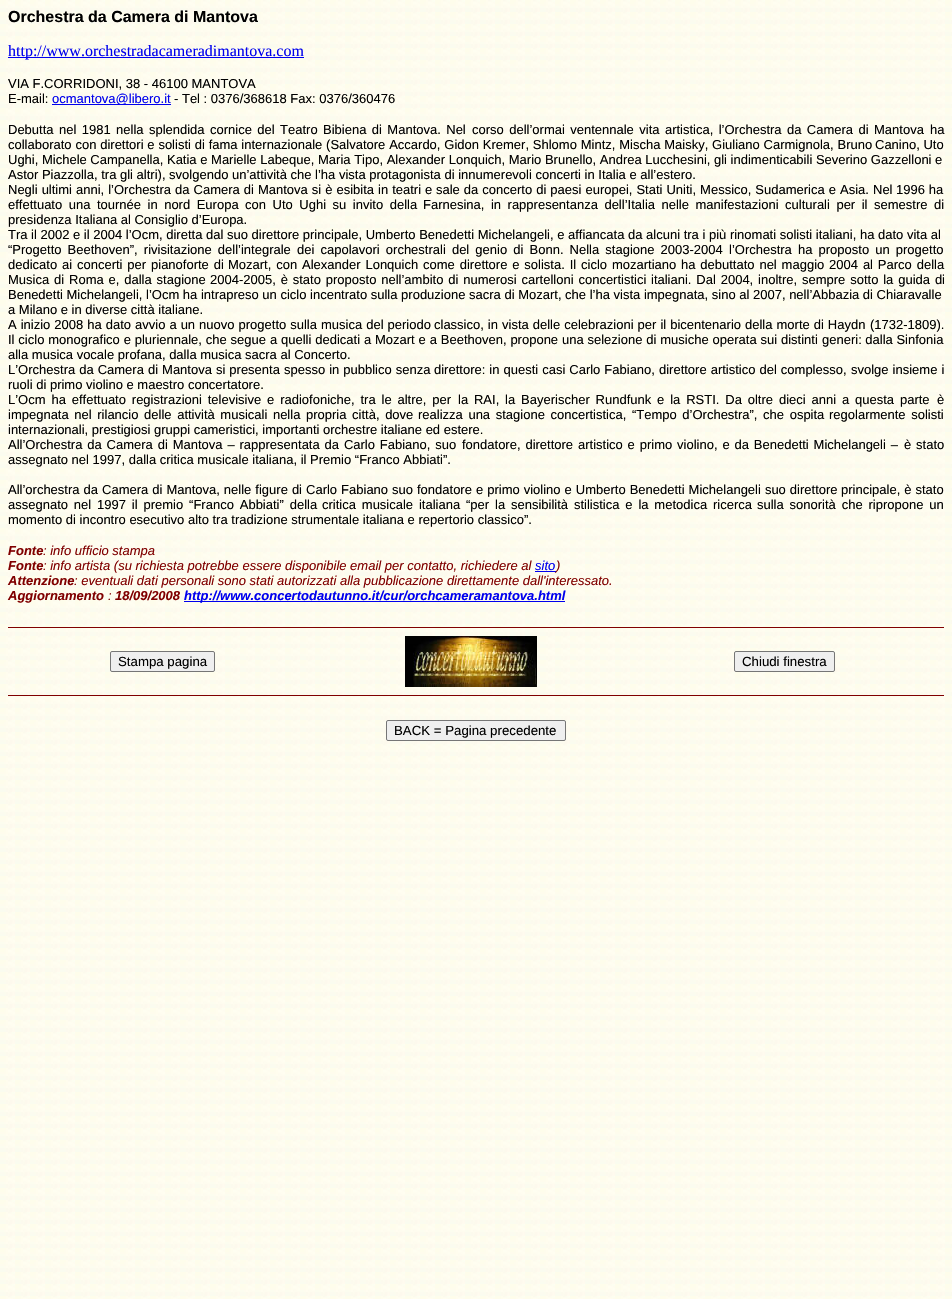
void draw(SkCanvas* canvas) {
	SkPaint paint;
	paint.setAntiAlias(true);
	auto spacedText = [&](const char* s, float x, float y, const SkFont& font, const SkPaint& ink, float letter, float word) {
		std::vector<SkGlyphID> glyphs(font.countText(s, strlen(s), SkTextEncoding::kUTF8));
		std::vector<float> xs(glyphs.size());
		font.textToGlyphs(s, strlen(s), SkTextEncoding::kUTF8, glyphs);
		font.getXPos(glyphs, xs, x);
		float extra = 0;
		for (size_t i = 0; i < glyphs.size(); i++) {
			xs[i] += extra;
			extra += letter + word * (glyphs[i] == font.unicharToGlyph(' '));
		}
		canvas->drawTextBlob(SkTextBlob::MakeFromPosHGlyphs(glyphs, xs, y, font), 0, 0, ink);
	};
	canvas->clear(0xffffffff);
	canvas->drawImageRect(SkImages::DeferredFromEncodedData(SkData::MakeFromFileName("img1.png")), SkRect::MakeXYWH(0, 0, 952, 1299), SkSamplingOptions());
	SkFont f1(fontMgr->matchFamilyStyle("Liberation Sans", SkFontStyle::Bold()), 16);
	f1.setSubpixel(true);
	paint.setColor(0xff000000);
	canvas->drawString("Orchestra da Camera di Mantova", 8, 22, f1, paint);
	paint.setColor(0xff0000ee);
	canvas->drawRect(SkRect::MakeXYWH(8, 57, 296, 1), paint);
	SkFont f2(fontMgr->matchFamilyStyle("Liberation Serif", SkFontStyle::Normal()), 16);
	f2.setSubpixel(true);
	canvas->drawString("http://www.orchestradacameradimantova.com", 8, 56, f2, paint);
	SkFont f3(fontMgr->matchFamilyStyle("Liberation Sans", SkFontStyle::Normal()), 13);
	f3.setSubpixel(true);
	paint.setColor(0xff000000);
	canvas->drawString("VIA F.CORRIDONI, 38 - 46100 MANTOVA", 8, 88, f3, paint);
	canvas->drawString("E-mail:", 8, 103, f3, paint);
	paint.setColor(0xff0000ee);
	canvas->drawRect(SkRect::MakeXYWH(52, 104, 119, 1), paint);
	canvas->drawString("ocmantova@libero.it", 52, 103, f3, paint);
	paint.setColor(0xff000000);
	canvas->drawString("- Tel : 0376/368618 Fax: 0376/360476", 174, 103, f3, paint);
	spacedText("Debutta nel 1981 nella splendida cornice del Teatro Bibiena di Mantova. Nel", 8, 134, f3, paint, 0, 1.8);
	spacedText("corso dell’ormai ventennale vita artistica, l’Orchestra da Camera di Mantova", 472, 134, f3, paint, 0, 1.8);
	canvas->drawString("ha", 930, 134, f3, paint);
	spacedText("collaborato con direttori e solisti di fama internazionale (Salvatore Accardo, Gidon Kremer, Shlomo Mintz, Mischa Maisky, Giuliano Carmignola, Bruno", 8, 149, f3, paint, 0, 0.2);
	canvas->drawString("Canino, Uto", 875, 149, f3, paint);
	canvas->drawString("Ughi, Michele Campanella, Katia e Marielle Labeque, Maria Tipo, Alexander Lonquich, Mario Brunello, Andrea Lucchesini, gli indimenticabili Severino Gazzelloni e", 8, 164, f3, paint);
	canvas->drawString("Astor Piazzolla, tra gli altri), svolgendo un’attività che l’ha vista protagonista di innumerevoli concerti in Italia e all’estero.", 8, 179, f3, paint);
	spacedText("Negli ultimi anni, l’Orchestra da Camera di Mantova si è esibita in teatri e", 8, 194, f3, paint, 0, 0.4);
	spacedText("sale da concerto di paesi europei, Stati Uniti, Messico, Sudamerica e Asia.", 436, 194, f3, paint, 0, 0.4);
	canvas->drawString("Nel 1996 ha", 873, 194, f3, paint);
	spacedText("effettuato una tournée in nord Europa con Uto Ughi su invito della", 8, 209, f3, paint, 0, 2.9);
	spacedText("Farnesina, in rappresentanza dell’Italia nelle manifestazioni culturali per il", 423, 209, f3, paint, 0, 2.9);
	spacedText("semestre di", 874, 209, f3, paint, 0, 2.9);
	canvas->drawString("presidenza Italiana al Consiglio d’Europa.", 8, 224, f3, paint);
	canvas->drawString("Tra il 2002 e il 2004 l’Ocm, diretta dal suo direttore principale, Umberto Benedetti Michelangeli, e affiancata da alcuni tra i più rinomati solisti italiani, ha dato vita al", 8, 239, f3, paint);
	spacedText("“Progetto Beethoven”, rivisitazione dell’integrale", 8, 254, f3, paint, 0, 2.5);
	spacedText("dei capolavori orchestrali del genio di Bonn. Nella stagione 2003-2004", 297, 254, f3, paint, 0, 2.5);
	spacedText("l’Orchestra ha proposto un progetto", 729, 254, f3, paint, 0, 2.5);
	spacedText("dedicato ai concerti per pianoforte di", 8, 269, f3, paint, 0, 1.25);
	spacedText("Mozart, con Alexander Lonquich come direttore e solista. Il ciclo mozartiano", 228, 269, f3, paint, 0, 1.25);
	spacedText("ha debuttato nel maggio 2004 al Parco della", 681, 269, f3, paint, 0, 1.25);
	spacedText("Musica di Roma e, dalla stagione", 8, 284, f3, paint, 0, 1.25);
	spacedText("2004-2005, è stato proposto nell’ambito di numerosi cartelloni concertistici", 210, 284, f3, paint, 0, 1.25);
	spacedText("italiani. Dal 2004, inoltre, sempre sotto la guida di", 651, 284, f3, paint, 0, 1.25);
	canvas->drawString("Benedetti Michelangeli, l’Ocm ha intrapreso un ciclo incentrato sulla produzione sacra di Mozart, che l’ha vista impegnata, sino al 2007, nell’Abbazia di Chiaravalle", 8, 299, f3, paint);
	canvas->drawString("a Milano e in diverse città italiane.", 8, 314, f3, paint);
	spacedText("A inizio 2008 ha dato avvio a un nuovo progetto sulla musica del periodo", 8, 329, f3, paint, 0, 0.4);
	spacedText("classico, in vista delle celebrazioni per il bicentenario della morte di Haydn", 434, 329, f3, paint, 0, 0.4);
	canvas->drawString("(1732-1809).", 870, 329, f3, paint);
	spacedText("Il ciclo monografico e pluriennale, che segue a quelli dedicati a Mozart e a Beethoven, propone una selezione di musiche operata sui distinti", 8, 344, f3, paint, 0, 0.25);
	canvas->drawString("generi: dalla Sinfonia", 822, 344, f3, paint);
	canvas->drawString("alla musica vocale profana, dalla musica sacra al Concerto.", 8, 359, f3, paint);
	spacedText("L’Orchestra da Camera di Mantova si presenta spesso in pubblico senza", 8, 374, f3, paint, 0, 0.4);
	spacedText("direttore: in questi casi Carlo Fabiano, direttore artistico del complesso,", 434, 374, f3, paint, 0, 0.4);
	spacedText("svolge insieme i", 851, 374, f3, paint, 0, 0.4);
	canvas->drawString("ruoli di primo violino e maestro concertatore.", 8, 389, f3, paint);
	spacedText("L’Ocm ha effettuato registrazioni televisive e radiofoniche, tra le altre, per", 8, 404, f3, paint, 0, 2.25);
	spacedText("la RAI, la Bayerischer Rundfunk e la RSTI. Da oltre dieci anni a questa parte", 458, 404, f3, paint, 0, 2.25);
	canvas->drawString("è", 937, 404, f3, paint);
	spacedText("impegnata nel rilancio delle attività musicali nella propria città, dove", 8, 419, f3, paint, 0, 2);
	spacedText("realizza una stagione concertistica, “Tempo d’Orchestra”, che ospita", 418, 419, f3, paint, 0, 2);
	spacedText("regolarmente solisti", 829, 419, f3, paint, 0, 2);
	canvas->drawString("internazionali, prestigiosi gruppi cameristici, importanti orchestre italiane ed estere.", 8, 434, f3, paint);
	spacedText("All’Orchestra da Camera di Mantova – rappresentata da Carlo Fabiano, suo", 8, 449, f3, paint, 0, 1.25);
	spacedText("fondatore, direttore artistico e primo violino, e da Benedetti Michelangeli –", 462, 449, f3, paint, 0, 1.25);
	spacedText("è stato", 904, 449, f3, paint, 0, 1.25);
	canvas->drawString("assegnato nel 1997, dalla critica musicale italiana, il Premio “Franco Abbiati”.", 8, 464, f3, paint);
	spacedText("All’orchestra da Camera di Mantova, nelle figure di Carlo Fabiano suo", 8, 494, f3, paint, 0, 0.4);
	spacedText("fondatore e primo violino e Umberto Benedetti Michelangeli suo direttore", 417, 494, f3, paint, 0, 0.4);
	spacedText("principale, è stato", 841, 494, f3, paint, 0, 0.4);
	spacedText("assegnato nel 1997 il premio “Franco Abbiati” della", 8, 509, f3, paint, 0, 2.25);
	spacedText("critica musicale italiana “per la sensibilità stilistica e la metodica ricerca", 322, 509, f3, paint, 0, 2.25);
	spacedText("sulla sonorità che ripropone un", 757, 509, f3, paint, 0, 2.25);
	canvas->drawString("momento di incontro esecutivo alto tra tradizione strumentale italiana e repertorio classico”.", 8, 524, f3, paint);
	SkFont f4(fontMgr->matchFamilyStyle("Liberation Sans", SkFontStyle::BoldItalic()), 13);
	f4.setSubpixel(true);
	paint.setColor(0xff800000);
	canvas->drawString("Fonte", 8, 555, f4, paint);
	SkFont f5(fontMgr->matchFamilyStyle("Liberation Sans", SkFontStyle::Italic()), 13);
	f5.setSubpixel(true);
	canvas->drawString(": info ufficio stampa", 43, 555, f5, paint);
	canvas->drawString("Fonte", 8, 570, f4, paint);
	canvas->drawString(": info artista (su richiesta potrebbe essere disponibile email per contatto, richiedere al", 43, 570, f5, paint);
	paint.setColor(0xff0000ee);
	canvas->drawString("sito", 535, 570, f5, paint);
	canvas->drawRect(SkRect::MakeXYWH(535, 571, 21, 1), paint);
	paint.setColor(0xff800000);
	canvas->drawString(")", 556, 570, f5, paint);
	canvas->drawString("Attenzione", 8, 585, f4, paint);
	canvas->drawString(": eventuali dati personali sono stati autorizzati alla pubblicazione direttamente dall'interessato.", 74, 585, f5, paint);
	canvas->drawString("Aggiornamento", 8, 600, f4, paint);
	canvas->drawString(":", 108, 600, f5, paint);
	canvas->drawString("18/09/2008", 115, 600, f4, paint);
	paint.setColor(0xff0000ee);
	canvas->drawRect(SkRect::MakeXYWH(184, 601, 381, 1), paint);
	canvas->drawString("http://www.concertodautunno.it/cur/orchcameramantova.html", 184, 600, f4, paint);
	paint.setColor(0xff800000);
	canvas->drawRect(SkRect::MakeXYWH(8, 627, 936, 1), paint);
	paint.setColor(0xffefefef);
	canvas->drawRoundRect(SkRect::MakeXYWH(110.5, 651.5, 104, 20), 1.5, 1.5, paint);
	paint.setStroke(true);
	paint.setStrokeWidth(1);
	paint.setColor(0xff767676);
	canvas->drawRoundRect(SkRect::MakeXYWH(110.5, 651.5, 104, 20), 1.5, 1.5, paint);
	SkFont f6(fontMgr->matchFamilyStyle("Liberation Sans", SkFontStyle::Normal()), 13.25);
	f6.setSubpixel(true);
	paint.setStroke(false);
	paint.setColor(0xff000000);
	canvas->drawString("Stampa pagina", 118, 666, f6, paint);
	canvas->drawImageRect(SkImages::DeferredFromEncodedData(SkData::MakeFromFileName("img2.png")), SkRect::MakeXYWH(405, 636, 132, 51), SkSamplingOptions());
	paint.setColor(0xffefefef);
	canvas->drawRoundRect(SkRect::MakeXYWH(734.5, 651.5, 100, 20), 1.5, 1.5, paint);
	paint.setStroke(true);
	paint.setColor(0xff767676);
	canvas->drawRoundRect(SkRect::MakeXYWH(734.5, 651.5, 100, 20), 1.5, 1.5, paint);
	paint.setStroke(false);
	paint.setColor(0xff000000);
	canvas->drawString("Chiudi finestra", 742, 666, f6, paint);
	paint.setColor(0xff800000);
	canvas->drawRect(SkRect::MakeXYWH(8, 695, 936, 1), paint);
	paint.setColor(0xffefefef);
	canvas->drawRoundRect(SkRect::MakeXYWH(386.5, 720.5, 179, 20), 1.5, 1.5, paint);
	paint.setStroke(true);
	paint.setColor(0xff767676);
	canvas->drawRoundRect(SkRect::MakeXYWH(386.5, 720.5, 179, 20), 1.5, 1.5, paint);
	paint.setStroke(false);
	paint.setColor(0xff000000);
	canvas->drawString("BACK = Pagina precedente", 394, 735, f6, paint);
}
